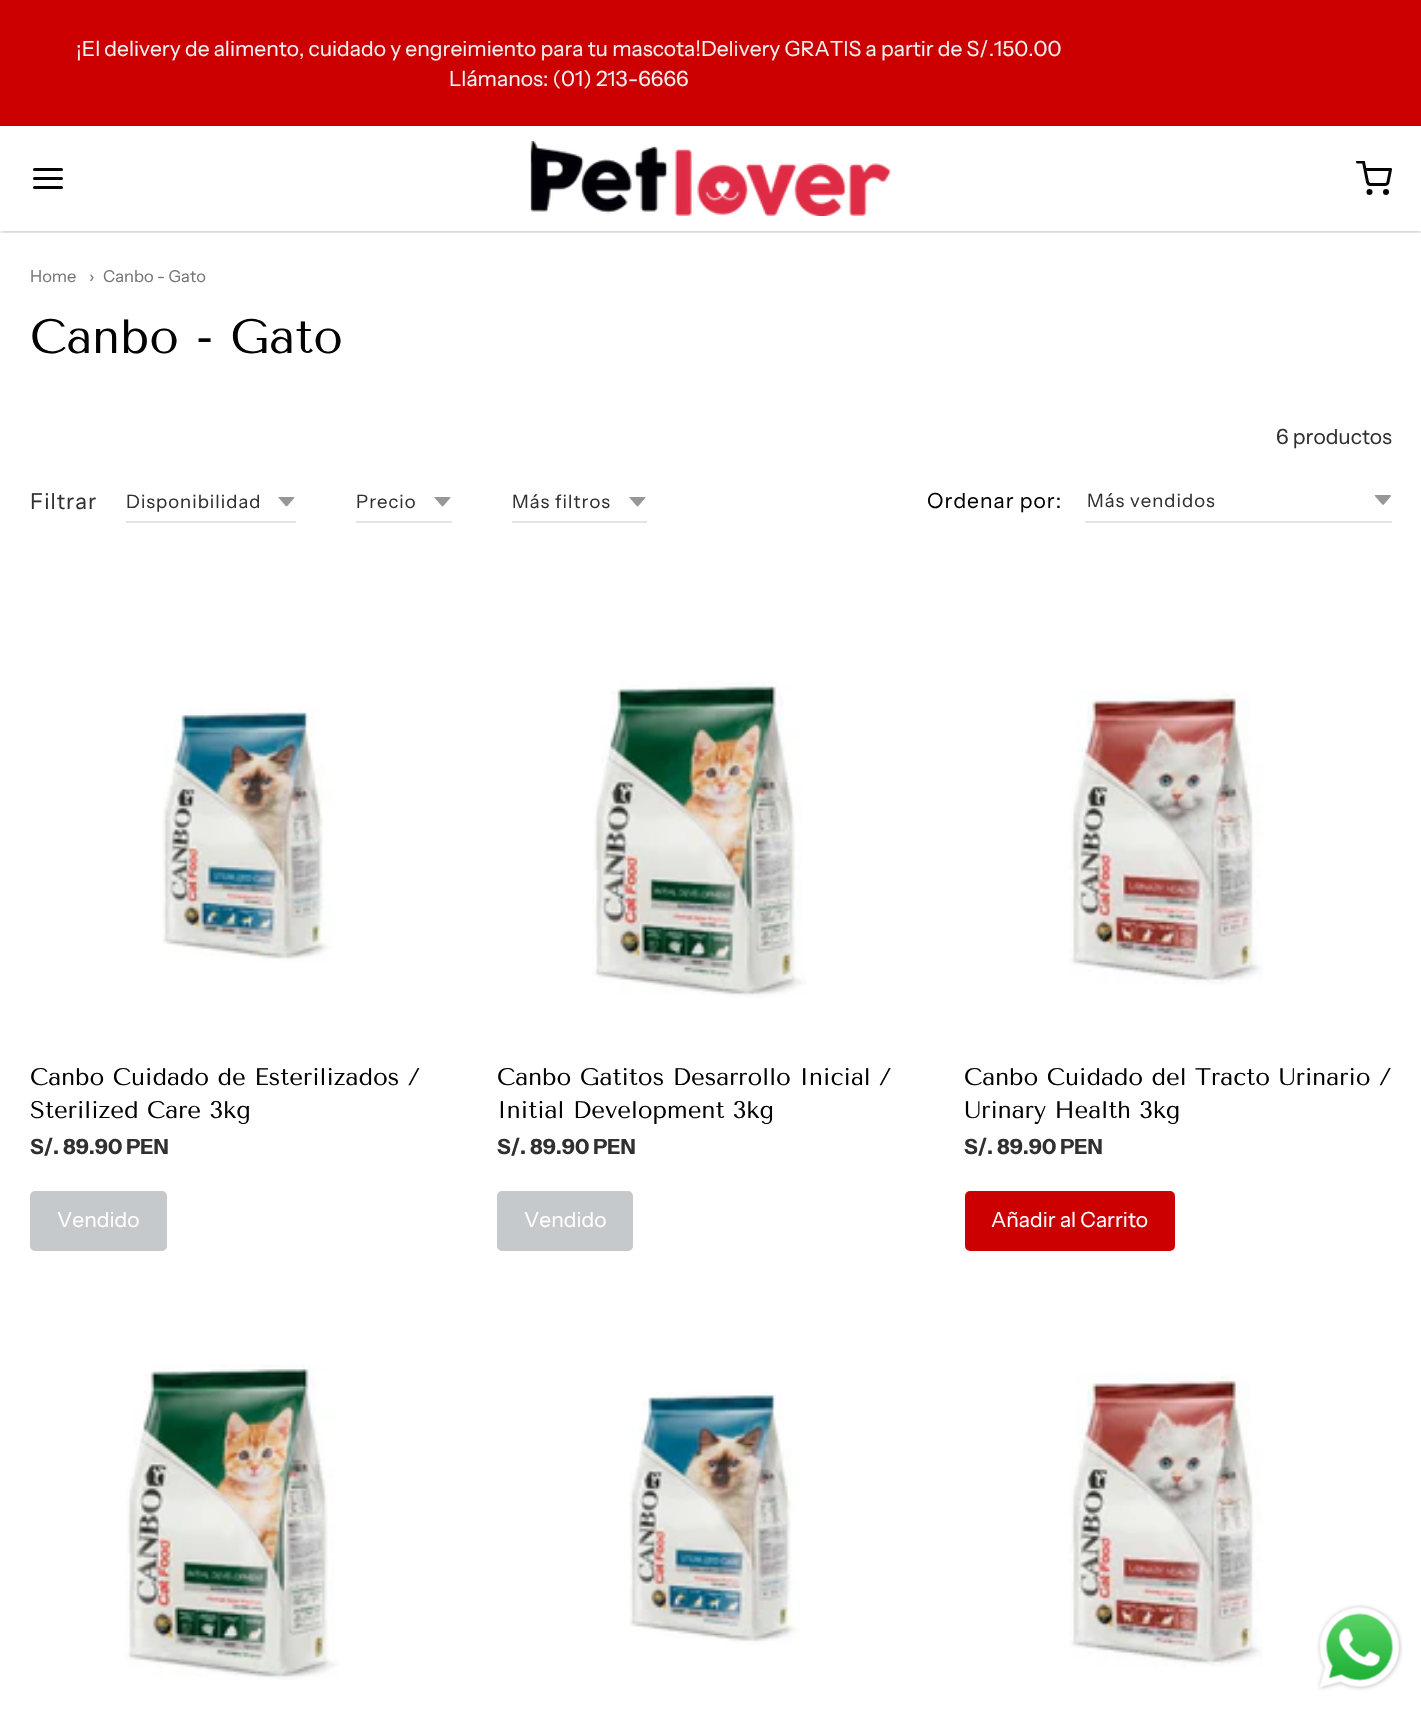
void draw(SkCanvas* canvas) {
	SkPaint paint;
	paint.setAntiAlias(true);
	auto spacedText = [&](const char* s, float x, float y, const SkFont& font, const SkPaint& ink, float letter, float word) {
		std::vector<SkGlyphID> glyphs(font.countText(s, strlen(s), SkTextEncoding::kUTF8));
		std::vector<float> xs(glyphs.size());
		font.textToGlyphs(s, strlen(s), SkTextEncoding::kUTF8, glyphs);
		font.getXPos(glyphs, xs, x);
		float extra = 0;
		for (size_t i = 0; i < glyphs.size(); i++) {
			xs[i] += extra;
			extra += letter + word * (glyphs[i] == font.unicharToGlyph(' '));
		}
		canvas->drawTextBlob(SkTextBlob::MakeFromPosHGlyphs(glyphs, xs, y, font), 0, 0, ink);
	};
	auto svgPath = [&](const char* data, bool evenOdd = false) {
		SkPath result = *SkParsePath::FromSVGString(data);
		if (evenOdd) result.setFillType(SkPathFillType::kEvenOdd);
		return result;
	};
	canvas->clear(0xffffffff);
	paint.setColor(0xffebebeb);
	canvas->drawRect(SkRect::MakeXYWH(0, 231, 1421, 2), paint);
	paint.setColor(0xffcc0000);
	canvas->drawRect(SkRect::MakeXYWH(0, 0, 1421, 126), paint);
	SkFont f1(fontMgr->matchFamilyStyle("Instrument Sans", SkFontStyle::Normal()), 21);
	f1.setSubpixel(true);
	paint.setColor(0xfff1f2f3);
	canvas->drawString("¡El delivery de alimento, cuidado y engreimiento para tu mascota!Delivery GRATIS a partir de S/.150.00", 76, 56, f1, paint);
	canvas->drawString("Llámanos: (01) 213-6666", 449, 86, f1, paint);
	canvas->save();
	canvas->clipRect(SkRect::MakeXYWH(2, 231, 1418, 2));
	paint.setColor(0x33000000);
	paint.setMaskFilter(SkMaskFilter::MakeBlur(kNormal_SkBlurStyle, 1.5));
	canvas->drawRect(SkRect::MakeXYWH(3, 132, 1416, 99), paint);
	paint.setMaskFilter(nullptr);
	canvas->restore();
	paint.setStroke(true);
	paint.setStrokeWidth(3);
	paint.setStrokeCap(SkPaint::kRound_Cap);
	paint.setStrokeJoin(SkPaint::kRound_Join);
	paint.setColor(0xff030303);
	canvas->drawPath(svgPath("M34.5 178.5H61.5M34.5 169.5H61.5M34.5 187.5H61.5"), paint);
	canvas->drawImageRect(SkImages::DeferredFromEncodedData(SkData::MakeFromFileName("img1.png")), SkRect::MakeXYWH(530, 141, 361, 75), SkSamplingOptions());
	canvas->save();
	canvas->clipRect(SkRect::MakeXYWH(1356, 161, 36, 36));
	canvas->drawPath(svgPath("M1357.5 162H1363.5L1367.5 182C1368 183.5 1369 184.5 1370.5 184.5H1385C1386.5 184.5 1388 183.5 1388 182L1390.5 169.5H1365"), paint);
	canvas->restore();
	paint.setStrokeCap(SkPaint::kButt_Cap);
	paint.setStrokeJoin(SkPaint::kMiter_Join);
	canvas->drawCircle(1369.5, 192, 1.5, paint);
	canvas->drawCircle(1386, 192, 1.5, paint);
	SkFont f2(fontMgr->matchFamilyStyle("Instrument Sans", SkFontStyle::Normal()), 16.5);
	f2.setSubpixel(true);
	paint.setStroke(false);
	paint.setColor(0xff747474);
	canvas->drawString("Home", 30, 282, f2, paint);
	canvas->drawString("›", 89, 282, f2, paint);
	canvas->drawString("Canbo - Gato", 103, 282, f2, paint);
	SkFont f3(fontMgr->matchFamilyStyle("Tenor Sans", SkFontStyle::Normal()), 48);
	f3.setSubpixel(true);
	paint.setColor(0xff030303);
	canvas->drawString("Canbo - Gato", 30, 353, f3, paint);
	paint.setColor(0xff303030);
	canvas->drawString("6 productos", 1276, 444, f1, paint);
	SkFont f4(fontMgr->matchFamilyStyle("Instrument Sans", SkFontStyle::Normal()), 22);
	f4.setSubpixel(true);
	spacedText("Filtrar", 30, 509, f4, paint, 1, 0);
	canvas->drawImageRect(SkImages::DeferredFromEncodedData(SkData::MakeFromFileName("img2.png")), SkRect::MakeXYWH(278, 497, 17, 10), SkSamplingOptions());
	paint.setColor(0xffe1e3e4);
	canvas->drawRect(SkRect::MakeXYWH(126, 521, 170, 2), paint);
	SkFont f5(fontMgr->matchFamilyStyle("Instrument Sans", SkFontStyle::Normal()), 18.5);
	f5.setSubpixel(true);
	paint.setColor(0xff303030);
	spacedText("Disponibilidad", 126, 508, f5, paint, 1, 0);
	canvas->drawImageRect(SkImages::DeferredFromEncodedData(SkData::MakeFromFileName("img2.png")), SkRect::MakeXYWH(434, 497, 17, 10), SkSamplingOptions());
	paint.setColor(0xffe1e3e4);
	canvas->drawRect(SkRect::MakeXYWH(356, 521, 96, 2), paint);
	paint.setColor(0xff303030);
	spacedText("Precio", 356, 508, f5, paint, 1, 0);
	canvas->drawImageRect(SkImages::DeferredFromEncodedData(SkData::MakeFromFileName("img2.png")), SkRect::MakeXYWH(629, 497, 17, 10), SkSamplingOptions());
	paint.setColor(0xffe1e3e4);
	canvas->drawRect(SkRect::MakeXYWH(512, 521, 135, 2), paint);
	paint.setColor(0xff303030);
	spacedText("Más filtros", 512, 508, f5, paint, 1, 0);
	paint.setColor(0xff030303);
	spacedText("Ordenar por:", 927, 508, f1, paint, 1, 0);
	canvas->drawImageRect(SkImages::DeferredFromEncodedData(SkData::MakeFromFileName("img3.png")), SkRect::MakeXYWH(1374, 495, 17, 10), SkSamplingOptions());
	paint.setColor(0xffe1e3e4);
	canvas->drawRect(SkRect::MakeXYWH(1085, 521, 307, 2), paint);
	paint.setColor(0xff303030);
	spacedText("Más vendidos", 1087, 507, f5, paint, 1, 0);
	canvas->drawImageRect(SkImages::DeferredFromEncodedData(SkData::MakeFromFileName("img4.png")), SkRect::MakeXYWH(162, 708, 171, 255), SkSamplingOptions());
	SkFont f6(fontMgr->matchFamilyStyle("Tenor Sans", SkFontStyle::Normal()), 24);
	f6.setSubpixel(true);
	paint.setColor(0xff030303);
	canvas->drawString("Canbo Cuidado de Esterilizados /", 30, 1085, f6, paint);
	canvas->drawString("Sterilized Care 3kg", 30, 1118, f6, paint);
	SkFont f7(fontMgr->matchFamilyStyle("Instrument Sans", SkFontStyle::Bold()), 21);
	f7.setSubpixel(true);
	paint.setColor(0xff303030);
	canvas->drawString("S/. 89.90 PEN", 30, 1154, f7, paint);
	paint.setColor(0xffc6c9cc);
	canvas->drawRoundRect(SkRect::MakeXYWH(31.5, 1192.5, 134, 57), 3.5, 3.5, paint);
	paint.setStroke(true);
	canvas->drawRoundRect(SkRect::MakeXYWH(31.5, 1192.5, 134, 57), 3.5, 3.5, paint);
	paint.setStroke(false);
	paint.setColor(0xffffffff);
	canvas->drawString("Vendido", 57, 1227, f1, paint);
	canvas->drawImageRect(SkImages::DeferredFromEncodedData(SkData::MakeFromFileName("img5.png")), SkRect::MakeXYWH(592, 680, 215, 318), SkSamplingOptions());
	paint.setColor(0xff030303);
	canvas->drawString("Canbo Gatitos Desarrollo Inicial /", 497, 1085, f6, paint);
	canvas->drawString("Initial Development 3kg", 497, 1118, f6, paint);
	paint.setColor(0xff303030);
	canvas->drawString("S/. 89.90 PEN", 497, 1154, f7, paint);
	paint.setColor(0xffc6c9cc);
	canvas->drawRoundRect(SkRect::MakeXYWH(498.5, 1192.5, 133, 57), 3.5, 3.5, paint);
	paint.setStroke(true);
	canvas->drawRoundRect(SkRect::MakeXYWH(498.5, 1192.5, 133, 57), 3.5, 3.5, paint);
	paint.setStroke(false);
	paint.setColor(0xffffffff);
	canvas->drawString("Vendido", 524, 1227, f1, paint);
	canvas->drawImageRect(SkImages::DeferredFromEncodedData(SkData::MakeFromFileName("img6.png")), SkRect::MakeXYWH(1069, 690, 194, 295), SkSamplingOptions());
	paint.setColor(0xff030303);
	canvas->drawString("Canbo Cuidado del Tracto Urinario /", 964, 1085, f6, paint);
	canvas->drawString("Urinary Health 3kg", 964, 1118, f6, paint);
	paint.setColor(0xff303030);
	canvas->drawString("S/. 89.90 PEN", 964, 1154, f7, paint);
	paint.setColor(0xffcc0000);
	canvas->drawRoundRect(SkRect::MakeXYWH(966.5, 1192.5, 207, 57), 3.5, 3.5, paint);
	paint.setStroke(true);
	canvas->drawRoundRect(SkRect::MakeXYWH(966.5, 1192.5, 207, 57), 3.5, 3.5, paint);
	paint.setStroke(false);
	paint.setColor(0xffffffff);
	canvas->drawString("Añadir al Carrito", 991, 1227, f1, paint);
	canvas->drawImageRect(SkImages::DeferredFromEncodedData(SkData::MakeFromFileName("img7.png")), SkRect::MakeXYWH(125, 1363, 214, 317), SkSamplingOptions());
	canvas->drawImageRect(SkImages::DeferredFromEncodedData(SkData::MakeFromFileName("img8.png")), SkRect::MakeXYWH(629, 1391, 171, 254), SkSamplingOptions());
	canvas->drawImageRect(SkImages::DeferredFromEncodedData(SkData::MakeFromFileName("img9.png")), SkRect::MakeXYWH(1069, 1373, 194, 294), SkSamplingOptions());
	canvas->drawImageRect(SkImages::DeferredFromEncodedData(SkData::MakeFromFileName("img10.png")), SkRect::MakeXYWH(1317, 1604, 86, 87), SkSamplingOptions());
}
